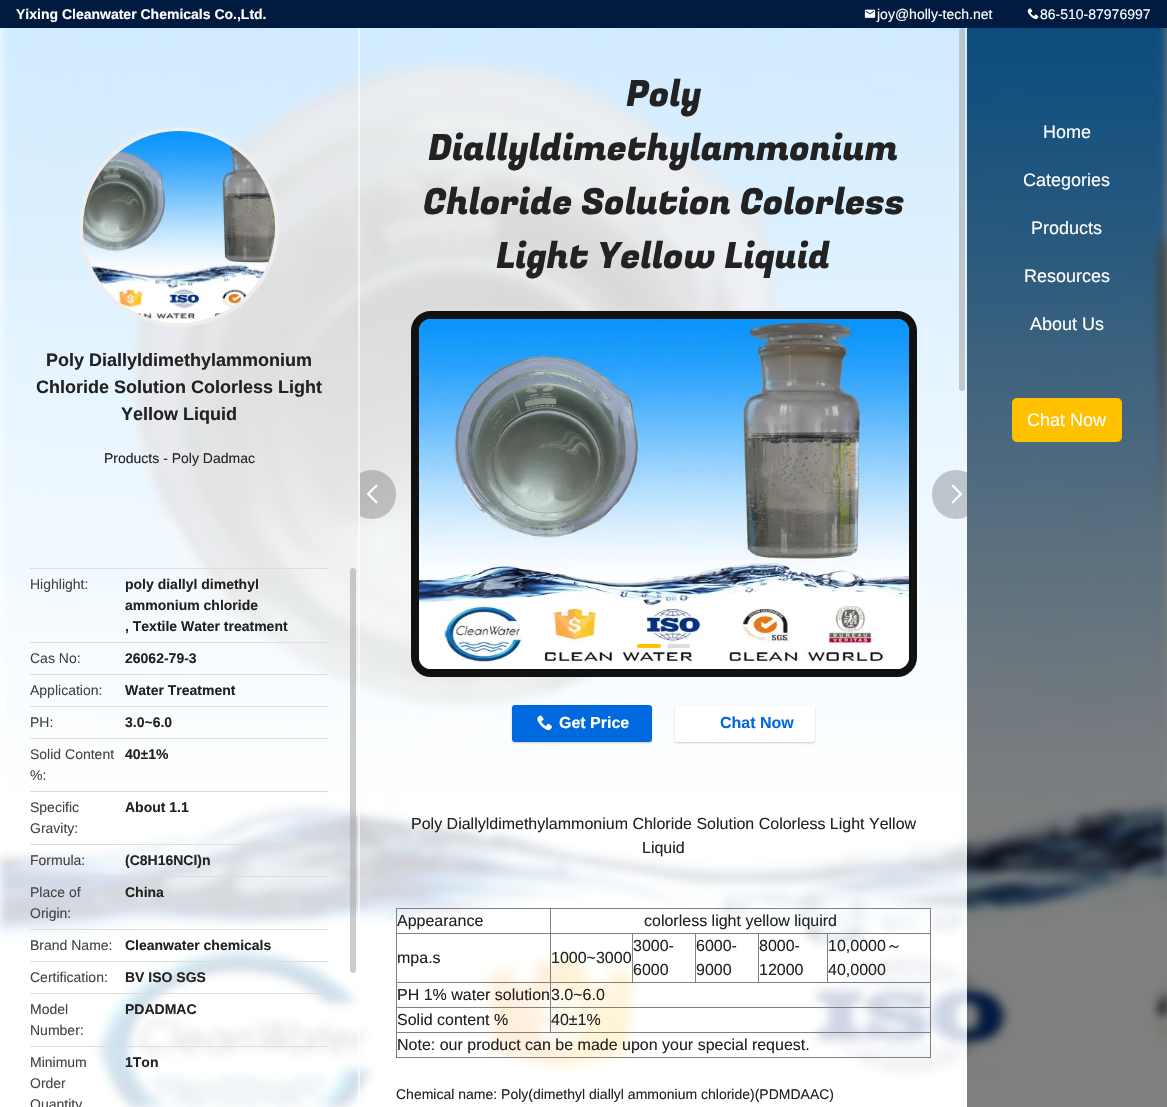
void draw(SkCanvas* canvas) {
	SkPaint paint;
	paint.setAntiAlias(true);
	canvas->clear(0xffffffff);
	paint.setColor(0xff001b3f);
	canvas->drawRect(SkRect::MakeXYWH(0, 0, 1167, 28), paint);
	SkFont f1(fontMgr->matchFamilyStyle("Liberation Sans", SkFontStyle::Bold()), 14);
	f1.setSubpixel(true);
	paint.setColor(0xffffffff);
	canvas->drawString("Yixing Cleanwater Chemicals Co.,Ltd.", 16, 19, f1, paint);
	canvas->drawImageRect(SkImages::DeferredFromEncodedData(SkData::MakeFromFileName("img1.png")), SkRect::MakeXYWH(864, 9, 12, 9), SkSamplingOptions());
	SkFont f2(fontMgr->matchFamilyStyle("Liberation Sans", SkFontStyle::Normal()), 14);
	f2.setSubpixel(true);
	canvas->drawString("joy@holly-tech.net", 877, 19, f2, paint);
	canvas->drawImageRect(SkImages::DeferredFromEncodedData(SkData::MakeFromFileName("img2.png")), SkRect::MakeXYWH(1027, 8, 12, 12), SkSamplingOptions());
	canvas->drawString("86-510-87976997", 1040, 19, f2, paint);
	canvas->drawImageRect(SkImages::DeferredFromEncodedData(SkData::MakeFromFileName("img3.png")), SkRect::MakeXYWH(0, 28, 1167, 1079), SkSamplingOptions());
	paint.setColor(0xccffffff);
	canvas->drawRect(SkRect::MakeXYWH(360, 28, 607, 1079), paint);
	SkFont f3(fontMgr->matchFamilyStyle("Fugaz One", SkFontStyle::Normal()), 36);
	f3.setSubpixel(true);
	paint.setColor(0xff222222);
	canvas->drawString("Poly", 626, 106, f3, paint);
	canvas->drawString("Diallyldimethylammonium", 428, 160, f3, paint);
	canvas->drawString("Chloride Solution Colorless", 423, 214, f3, paint);
	canvas->drawString("Light Yellow Liquid", 496, 268, f3, paint);
	paint.setColor(0x99aaaaaa);
	canvas->drawRoundRect(SkRect::MakeXYWH(959, 28, 6, 363), 3, 3, paint);
	paint.setStroke(true);
	paint.setStrokeWidth(8);
	paint.setColor(0xff111111);
	canvas->drawRoundRect(SkRect::MakeXYWH(415, 315, 498, 358), 16, 16, paint);
	canvas->drawImageRect(SkImages::DeferredFromEncodedData(SkData::MakeFromFileName("img4.png")), SkRect::MakeXYWH(419, 319, 490, 350), SkSamplingOptions());
	paint.setStroke(false);
	paint.setColor(0xccffffff);
	canvas->drawRect(SkRect::MakeXYWH(0, 28, 360, 1079), paint);
	paint.setColor(0x99ffffff);
	canvas->drawRect(SkRect::MakeXYWH(358, 28, 2, 1079), paint);
	canvas->save();
	canvas->clipRect(SkRect::MakeXYWH(360, 28, 607, 1079));
	paint.setColor(0x33000000);
	canvas->drawRoundRect(SkRect::MakeXYWH(348, 470, 48, 49), 24, 24, paint);
	canvas->restore();
	canvas->drawImageRect(SkImages::DeferredFromEncodedData(SkData::MakeFromFileName("img5.png")), SkRect::MakeXYWH(367, 484, 11, 20), SkSamplingOptions());
	paint.setColor(0x80000000);
	canvas->drawRect(SkRect::MakeXYWH(967, 28, 200, 1079), paint);
	canvas->save();
	canvas->clipRect(SkRect::MakeXYWH(360, 28, 607, 1079));
	paint.setColor(0x33000000);
	canvas->drawRoundRect(SkRect::MakeXYWH(932, 470, 48, 49), 24, 24, paint);
	canvas->restore();
	canvas->drawImageRect(SkImages::DeferredFromEncodedData(SkData::MakeFromFileName("img6.png")), SkRect::MakeXYWH(951, 484, 11, 20), SkSamplingOptions());
	paint.setColor(0xffffc000);
	canvas->drawRoundRect(SkRect::MakeXYWH(637, 644, 24, 4), 2, 2, paint);
	paint.setColor(0xffdddddd);
	canvas->drawRoundRect(SkRect::MakeXYWH(667, 644, 23, 4), 2, 2, paint);
	paint.setColor(0x33000000);
	paint.setMaskFilter(SkMaskFilter::MakeBlur(kNormal_SkBlurStyle, 1));
	canvas->drawRoundRect(SkRect::MakeXYWH(512, 706, 140, 37), 3, 3, paint);
	paint.setMaskFilter(nullptr);
	paint.setColor(0xff0069de);
	canvas->drawRoundRect(SkRect::MakeXYWH(512, 705, 140, 37), 3, 3, paint);
	canvas->drawImageRect(SkImages::DeferredFromEncodedData(SkData::MakeFromFileName("img7.png")), SkRect::MakeXYWH(537, 715, 15, 16), SkSamplingOptions());
	SkFont f4(fontMgr->matchFamilyStyle("Liberation Sans", SkFontStyle::Bold()), 16);
	f4.setSubpixel(true);
	paint.setColor(0xffffffff);
	canvas->drawString("Get Price", 559, 728, f4, paint);
	paint.setColor(0x33000000);
	paint.setMaskFilter(SkMaskFilter::MakeBlur(kNormal_SkBlurStyle, 1));
	canvas->drawRoundRect(SkRect::MakeXYWH(675, 706, 140, 37), 3, 3, paint);
	paint.setMaskFilter(nullptr);
	paint.setColor(0xffffffff);
	canvas->drawRoundRect(SkRect::MakeXYWH(675, 705, 140, 37), 3, 3, paint);
	paint.setColor(0xff0069de);
	canvas->drawString("Chat Now", 720, 728, f4, paint);
	SkFont f5(fontMgr->matchFamilyStyle("Liberation Sans", SkFontStyle::Normal()), 16);
	f5.setSubpixel(true);
	paint.setColor(0xff222222);
	canvas->drawString("Poly Diallyldimethylammonium Chloride Solution Colorless Light Yellow", 411, 829, f5, paint);
	canvas->drawString("Liquid", 642, 853, f5, paint);
	paint.setColor(0xff808080);
	canvas->drawRect(SkRect::MakeXYWH(396, 908, 535, 1), paint);
	canvas->drawRect(SkRect::MakeXYWH(930, 908, 1, 150), paint);
	canvas->drawRect(SkRect::MakeXYWH(396, 1057, 535, 1), paint);
	canvas->drawRect(SkRect::MakeXYWH(396, 908, 1, 150), paint);
	paint.setColor(0xff222222);
	canvas->drawString("Appearance", 397, 926, f5, paint);
	paint.setColor(0xff808080);
	canvas->drawRect(SkRect::MakeXYWH(827, 933, 104, 1), paint);
	canvas->drawRect(SkRect::MakeXYWH(550, 982, 381, 1), paint);
	canvas->drawRect(SkRect::MakeXYWH(827, 933, 1, 50), paint);
	canvas->drawRect(SkRect::MakeXYWH(758, 933, 70, 1), paint);
	canvas->drawRect(SkRect::MakeXYWH(758, 933, 1, 50), paint);
	canvas->drawRect(SkRect::MakeXYWH(695, 933, 64, 1), paint);
	canvas->drawRect(SkRect::MakeXYWH(695, 933, 1, 50), paint);
	canvas->drawRect(SkRect::MakeXYWH(632, 933, 64, 1), paint);
	canvas->drawRect(SkRect::MakeXYWH(632, 933, 1, 50), paint);
	canvas->drawRect(SkRect::MakeXYWH(550, 933, 83, 1), paint);
	canvas->drawRect(SkRect::MakeXYWH(550, 1007, 381, 1), paint);
	canvas->drawRect(SkRect::MakeXYWH(396, 1032, 535, 1), paint);
	canvas->drawRect(SkRect::MakeXYWH(550, 1007, 1, 26), paint);
	canvas->drawRect(SkRect::MakeXYWH(396, 1007, 155, 1), paint);
	canvas->drawRect(SkRect::MakeXYWH(550, 982, 1, 26), paint);
	canvas->drawRect(SkRect::MakeXYWH(396, 982, 155, 1), paint);
	canvas->drawRect(SkRect::MakeXYWH(550, 933, 1, 50), paint);
	canvas->drawRect(SkRect::MakeXYWH(396, 933, 155, 1), paint);
	canvas->drawRect(SkRect::MakeXYWH(550, 908, 1, 26), paint);
	paint.setColor(0xff222222);
	canvas->drawString("colorless light yellow liquird", 644, 926, f5, paint);
	canvas->drawString("mpa.s", 397, 963, f5, paint);
	canvas->drawString("1000~3000", 551, 963, f5, paint);
	canvas->drawString("3000-", 633, 951, f5, paint);
	canvas->drawString("6000", 633, 975, f5, paint);
	canvas->drawString("6000-", 696, 951, f5, paint);
	canvas->drawString("9000", 696, 975, f5, paint);
	canvas->drawString("8000-", 759, 951, f5, paint);
	canvas->drawString("12000", 759, 975, f5, paint);
	canvas->drawString("10,0000", 828, 951, f5, paint);
	SkFont f6(fontMgr->matchFamilyStyle("WenQuanYi Zen Hei", SkFontStyle(500, SkFontStyle::kNormal_Width, SkFontStyle::kUpright_Slant)), 16);
	f6.setSubpixel(true);
	canvas->drawString("～", 886, 951, f6, paint);
	canvas->drawString("40,0000", 828, 975, f5, paint);
	canvas->drawString("PH 1% water solution", 397, 1000, f5, paint);
	canvas->drawString("3.0~6.0", 551, 1000, f5, paint);
	canvas->drawString("Solid content %", 397, 1025, f5, paint);
	canvas->drawString("40±1%", 551, 1025, f5, paint);
	canvas->drawString("Note: our product can be made upon your special request.", 397, 1050, f5, paint);
	canvas->drawString("Chemical name: Poly(dimethyl diallyl ammonium chloride)(PDMDAAC)", 396, 1099, f2, paint);
	SkFont f7(fontMgr->matchFamilyStyle("Liberation Sans", SkFontStyle::Normal()), 18);
	f7.setSubpixel(true);
	paint.setColor(0xffffffff);
	canvas->drawString("Home", 1043, 138, f7, paint);
	canvas->drawString("Categories", 1023, 186, f7, paint);
	canvas->drawString("Products", 1031, 234, f7, paint);
	canvas->drawString("Resources", 1024, 282, f7, paint);
	canvas->drawString("About Us", 1030, 330, f7, paint);
	paint.setColor(0xffffc000);
	canvas->drawRoundRect(SkRect::MakeXYWH(1012, 398, 110, 44), 5, 5, paint);
	paint.setColor(0xffffffff);
	canvas->drawString("Chat Now", 1027, 426, f7, paint);
	paint.setStroke(true);
	paint.setStrokeWidth(4);
	paint.setColor(0xffeeeeee);
	canvas->drawCircle(179, 227, 98, paint);
	canvas->drawImageRect(SkImages::DeferredFromEncodedData(SkData::MakeFromFileName("img8.png")), SkRect::MakeXYWH(83, 131, 192, 192), SkSamplingOptions());
	SkFont f8(fontMgr->matchFamilyStyle("Liberation Sans", SkFontStyle::Bold()), 18);
	f8.setSubpixel(true);
	paint.setStroke(false);
	paint.setColor(0xff222222);
	canvas->drawString("Poly Diallyldimethylammonium", 46, 366, f8, paint);
	canvas->drawString("Chloride Solution Colorless Light", 36, 393, f8, paint);
	canvas->drawString("Yellow Liquid", 121, 420, f8, paint);
	canvas->drawString("Products - Poly Dadmac", 104, 463, f2, paint);
	paint.setColor(0xffdddddd);
	canvas->drawRect(SkRect::MakeXYWH(30, 568, 298, 1), paint);
	paint.setColor(0xff444444);
	canvas->drawString("Highlight:", 30, 589, f2, paint);
	paint.setColor(0xff222222);
	canvas->drawString("poly diallyl dimethyl", 125, 589, f1, paint);
	canvas->drawString("ammonium chloride", 125, 610, f1, paint);
	canvas->drawString(", Textile Water treatment", 125, 631, f1, paint);
	paint.setColor(0xffdddddd);
	canvas->drawRect(SkRect::MakeXYWH(30, 642, 298, 1), paint);
	paint.setColor(0xff444444);
	canvas->drawString("Cas No:", 30, 663, f2, paint);
	paint.setColor(0xff222222);
	canvas->drawString("26062-79-3", 125, 663, f1, paint);
	paint.setColor(0xffdddddd);
	canvas->drawRect(SkRect::MakeXYWH(30, 674, 298, 1), paint);
	paint.setColor(0xff444444);
	canvas->drawString("Application:", 30, 695, f2, paint);
	paint.setColor(0xff222222);
	canvas->drawString("Water Treatment", 125, 695, f1, paint);
	paint.setColor(0xffdddddd);
	canvas->drawRect(SkRect::MakeXYWH(30, 706, 298, 1), paint);
	paint.setColor(0xff444444);
	canvas->drawString("PH:", 30, 727, f2, paint);
	paint.setColor(0xff222222);
	canvas->drawString("3.0~6.0", 125, 727, f1, paint);
	paint.setColor(0xffdddddd);
	canvas->drawRect(SkRect::MakeXYWH(30, 738, 298, 1), paint);
	paint.setColor(0xff444444);
	canvas->drawString("Solid Content", 30, 759, f2, paint);
	canvas->drawString("%:", 30, 780, f2, paint);
	paint.setColor(0xff222222);
	canvas->drawString("40±1%", 125, 759, f1, paint);
	paint.setColor(0xffdddddd);
	canvas->drawRect(SkRect::MakeXYWH(30, 791, 298, 1), paint);
	paint.setColor(0xff444444);
	canvas->drawString("Specific", 30, 812, f2, paint);
	canvas->drawString("Gravity:", 30, 833, f2, paint);
	paint.setColor(0xff222222);
	canvas->drawString("About 1.1", 125, 812, f1, paint);
	paint.setColor(0xffdddddd);
	canvas->drawRect(SkRect::MakeXYWH(30, 844, 298, 1), paint);
	paint.setColor(0xff444444);
	canvas->drawString("Formula:", 30, 865, f2, paint);
	paint.setColor(0xff222222);
	canvas->drawString("(C8H16NCl)n", 125, 865, f1, paint);
	paint.setColor(0xffdddddd);
	canvas->drawRect(SkRect::MakeXYWH(30, 876, 298, 1), paint);
	paint.setColor(0xff444444);
	canvas->drawString("Place of", 30, 897, f2, paint);
	canvas->drawString("Origin:", 30, 918, f2, paint);
	paint.setColor(0xff222222);
	canvas->drawString("China", 125, 897, f1, paint);
	paint.setColor(0xffdddddd);
	canvas->drawRect(SkRect::MakeXYWH(30, 929, 298, 1), paint);
	paint.setColor(0xff444444);
	canvas->drawString("Brand Name:", 30, 950, f2, paint);
	paint.setColor(0xff222222);
	canvas->drawString("Cleanwater chemicals", 125, 950, f1, paint);
	paint.setColor(0xffdddddd);
	canvas->drawRect(SkRect::MakeXYWH(30, 961, 298, 1), paint);
	paint.setColor(0xff444444);
	canvas->drawString("Certification:", 30, 982, f2, paint);
	paint.setColor(0xff222222);
	canvas->drawString("BV ISO SGS", 125, 982, f1, paint);
	paint.setColor(0xffdddddd);
	canvas->drawRect(SkRect::MakeXYWH(30, 993, 298, 1), paint);
	paint.setColor(0xff444444);
	canvas->drawString("Model", 30, 1014, f2, paint);
	canvas->drawString("Number:", 30, 1035, f2, paint);
	paint.setColor(0xff222222);
	canvas->drawString("PDADMAC", 125, 1014, f1, paint);
	paint.setColor(0xffdddddd);
	canvas->drawRect(SkRect::MakeXYWH(30, 1046, 298, 1), paint);
	paint.setColor(0xff444444);
	canvas->drawString("Minimum", 30, 1067, f2, paint);
	canvas->drawString("Order", 30, 1088, f2, paint);
	canvas->drawString("Quantity", 30, 1109, f2, paint);
	paint.setColor(0xff222222);
	canvas->drawString("1Ton", 125, 1067, f1, paint);
	paint.setColor(0x99aaaaaa);
	canvas->drawRoundRect(SkRect::MakeXYWH(350, 568, 6, 405), 3, 3, paint);
}
